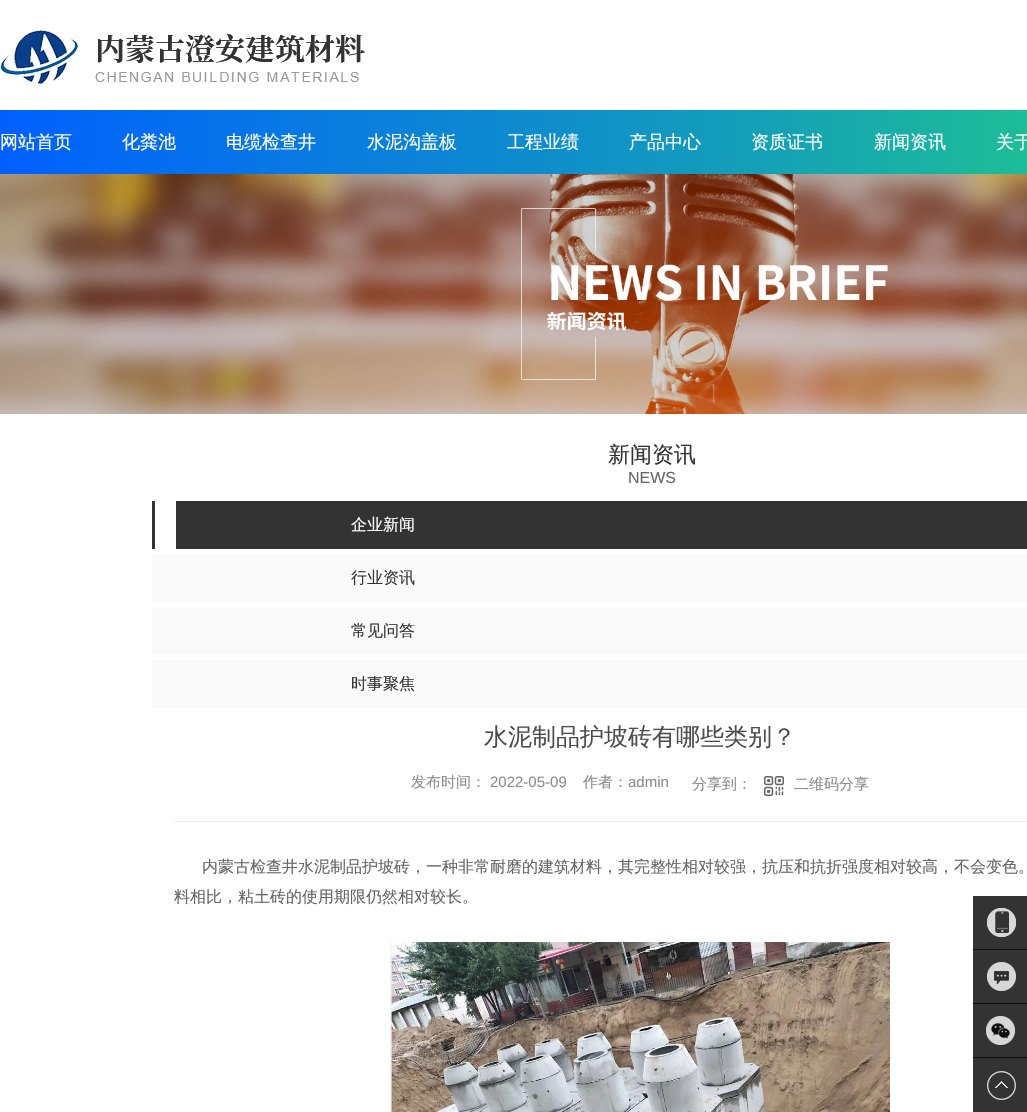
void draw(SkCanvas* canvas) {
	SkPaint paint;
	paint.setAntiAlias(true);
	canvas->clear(0xffffffff);
	paint.setColor(0xff333333);
	canvas->drawRect(SkRect::MakeXYWH(973, 1004, 54, 53), paint);
	canvas->drawRect(SkRect::MakeXYWH(973, 950, 54, 53), paint);
	canvas->drawRect(SkRect::MakeXYWH(973, 896, 54, 53), paint);
	canvas->drawImageRect(SkImages::DeferredFromEncodedData(SkData::MakeFromFileName("img1.png")), SkRect::MakeXYWH(0, 30, 365, 55), SkSamplingOptions());
	{
		const SkColor colors[] = {0xff0060ff, 0xff139cbc, 0xff25d879};
		const float stops[] = {0, 0.56, 1};
		const SkPoint ends[] = {{0, 142}, {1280, 142}};
		paint.setShader(SkGradientShader::MakeLinear(ends, colors, stops, 3, SkTileMode::kClamp));
		paint.setAlpha(255);
	}
	canvas->drawRect(SkRect::MakeXYWH(0, 110, 1027, 64), paint);
	SkFont f1(fontMgr->matchFamilyStyle("WenQuanYi Zen Hei", SkFontStyle(500, SkFontStyle::kNormal_Width, SkFontStyle::kUpright_Slant)), 18);
	f1.setSubpixel(true);
	paint.setShader(nullptr);
	paint.setColor(0xffffffff);
	canvas->drawString("网站首页", 0, 148, f1, paint);
	canvas->drawString("化粪池", 122, 148, f1, paint);
	canvas->drawString("电缆检查井", 226, 148, f1, paint);
	canvas->drawString("水泥沟盖板", 367, 148, f1, paint);
	canvas->drawString("工程业绩", 507, 148, f1, paint);
	canvas->drawString("产品中心", 629, 148, f1, paint);
	canvas->drawString("资质证书", 751, 148, f1, paint);
	canvas->drawString("新闻资讯", 874, 148, f1, paint);
	canvas->drawString("关于", 996, 148, f1, paint);
	canvas->drawImageRect(SkImages::DeferredFromEncodedData(SkData::MakeFromFileName("img2.png")), SkRect::MakeXYWH(0, 174, 1027, 240), SkSamplingOptions());
	SkFont f2(fontMgr->matchFamilyStyle("WenQuanYi Zen Hei", SkFontStyle(500, SkFontStyle::kNormal_Width, SkFontStyle::kUpright_Slant)), 22);
	f2.setSubpixel(true);
	paint.setColor(0xff333333);
	canvas->drawString("新闻资讯", 608, 462, f2, paint);
	SkFont f3(fontMgr->matchFamilyStyle("Liberation Sans", SkFontStyle::Normal()), 16);
	f3.setSubpixel(true);
	paint.setColor(0xff666666);
	canvas->drawString("NEWS", 628, 483, f3, paint);
	paint.setColor(0xff333333);
	canvas->drawRect(SkRect::MakeXYWH(152, 501, 875, 48), paint);
	paint.setColor(0xffffffff);
	canvas->drawRect(SkRect::MakeXYWH(155, 501, 21, 48), paint);
	SkFont f4(fontMgr->matchFamilyStyle("WenQuanYi Zen Hei", SkFontStyle(500, SkFontStyle::kNormal_Width, SkFontStyle::kUpright_Slant)), 16);
	f4.setSubpixel(true);
	canvas->drawString("企业新闻", 351, 530, f4, paint);
	paint.setColor(0xfffafafa);
	canvas->drawRect(SkRect::MakeXYWH(152, 554, 875, 48), paint);
	paint.setColor(0xff333333);
	canvas->drawString("行业资讯", 351, 583, f4, paint);
	paint.setColor(0xfffafafa);
	canvas->drawRect(SkRect::MakeXYWH(152, 607, 875, 48), paint);
	paint.setColor(0xff333333);
	canvas->drawString("常见问答", 351, 636, f4, paint);
	paint.setColor(0xfffafafa);
	canvas->drawRect(SkRect::MakeXYWH(152, 660, 875, 48), paint);
	paint.setColor(0xff333333);
	canvas->drawString("时事聚焦", 351, 689, f4, paint);
	SkFont f5(fontMgr->matchFamilyStyle("WenQuanYi Zen Hei", SkFontStyle(500, SkFontStyle::kNormal_Width, SkFontStyle::kUpright_Slant)), 24);
	f5.setSubpixel(true);
	paint.setColor(0xff4c4c4c);
	canvas->drawString("水泥制品护坡砖有哪些类别？", 484, 745, f5, paint);
	SkFont f6(fontMgr->matchFamilyStyle("WenQuanYi Zen Hei", SkFontStyle(500, SkFontStyle::kNormal_Width, SkFontStyle::kUpright_Slant)), 15);
	f6.setSubpixel(true);
	paint.setColor(0xff8c8c8c);
	canvas->drawString("发布时间：", 411, 787, f6, paint);
	SkFont f7(fontMgr->matchFamilyStyle("Liberation Sans", SkFontStyle::Normal()), 15);
	f7.setSubpixel(true);
	canvas->drawString("2022-05-09", 490, 787, f7, paint);
	canvas->drawString("作者：", 583, 787, f6, paint);
	canvas->drawString("admin", 628, 787, f7, paint);
	canvas->drawString("分享到：", 692, 789, f6, paint);
	canvas->drawImageRect(SkImages::DeferredFromEncodedData(SkData::MakeFromFileName("img3.png")), SkRect::MakeXYWH(764, 776, 20, 20), SkSamplingOptions());
	canvas->drawString("二维码分享", 794, 789, f6, paint);
	paint.setColor(0xffededed);
	canvas->drawRect(SkRect::MakeXYWH(174, 821, 853, 1), paint);
	paint.setColor(0xff666666);
	canvas->drawString("内蒙古检查井水泥制品护坡砖，一种非常耐磨的建筑材料，其完整性相对较强，抗压和抗折强度相对较高，不会变色。", 202, 872, f4, paint);
	canvas->drawString("料相比，粘土砖的使用期限仍然相对较长。", 174, 902, f4, paint);
	canvas->drawImageRect(SkImages::DeferredFromEncodedData(SkData::MakeFromFileName("img4.png")), SkRect::MakeXYWH(390, 942, 500, 170), SkSamplingOptions());
	paint.setColor(0xff0e0e0e);
	canvas->drawRect(SkRect::MakeXYWH(973, 949, 54, 1), paint);
	canvas->drawImageRect(SkImages::DeferredFromEncodedData(SkData::MakeFromFileName("img5.png")), SkRect::MakeXYWH(987, 908, 29, 29), SkSamplingOptions());
	canvas->drawRect(SkRect::MakeXYWH(973, 1003, 54, 1), paint);
	canvas->drawImageRect(SkImages::DeferredFromEncodedData(SkData::MakeFromFileName("img6.png")), SkRect::MakeXYWH(987, 962, 29, 29), SkSamplingOptions());
	canvas->drawRect(SkRect::MakeXYWH(973, 1057, 54, 1), paint);
	canvas->drawImageRect(SkImages::DeferredFromEncodedData(SkData::MakeFromFileName("img7.png")), SkRect::MakeXYWH(986, 1016, 29, 29), SkSamplingOptions());
	paint.setColor(0xff333333);
	canvas->drawRect(SkRect::MakeXYWH(973, 1058, 54, 54), paint);
	canvas->drawImageRect(SkImages::DeferredFromEncodedData(SkData::MakeFromFileName("img8.png")), SkRect::MakeXYWH(987, 1071, 29, 29), SkSamplingOptions());
}
